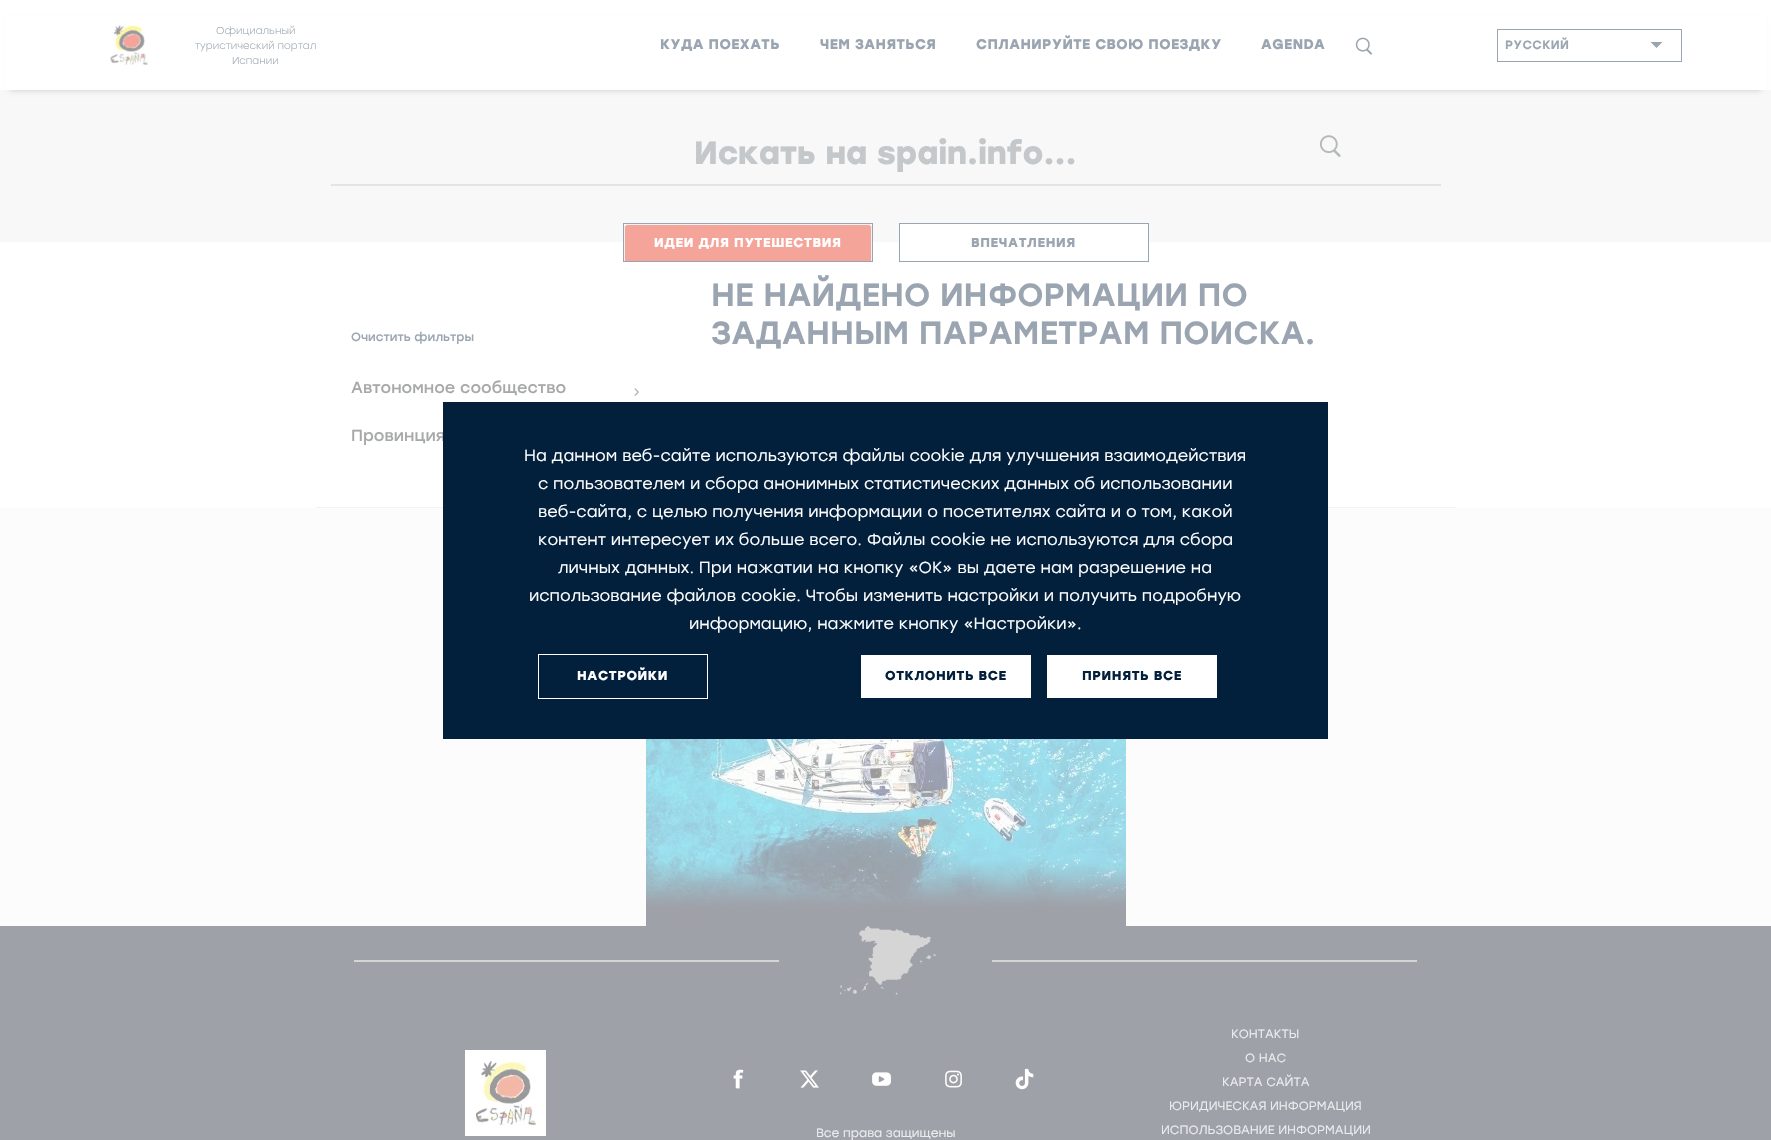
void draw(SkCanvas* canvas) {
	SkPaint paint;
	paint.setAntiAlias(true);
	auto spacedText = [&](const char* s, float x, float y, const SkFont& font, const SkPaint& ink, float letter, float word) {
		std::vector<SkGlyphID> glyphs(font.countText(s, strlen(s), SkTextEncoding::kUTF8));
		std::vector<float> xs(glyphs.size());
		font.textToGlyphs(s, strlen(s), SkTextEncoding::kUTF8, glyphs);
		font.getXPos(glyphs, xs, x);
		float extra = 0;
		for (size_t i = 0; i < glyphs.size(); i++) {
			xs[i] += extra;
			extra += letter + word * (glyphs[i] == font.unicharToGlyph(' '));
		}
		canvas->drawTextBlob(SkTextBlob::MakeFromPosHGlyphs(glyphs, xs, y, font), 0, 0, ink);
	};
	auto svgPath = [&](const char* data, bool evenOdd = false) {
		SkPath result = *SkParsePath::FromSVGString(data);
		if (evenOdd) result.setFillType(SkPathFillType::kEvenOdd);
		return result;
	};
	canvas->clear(0xffffffff);
	paint.setColor(0xfff8f8f8);
	canvas->drawRect(SkRect::MakeXYWH(0, 90, 1771, 152), paint);
	paint.setColor(0xffc9c9c9);
	paint.setMaskFilter(SkMaskFilter::MakeBlur(kNormal_SkBlurStyle, 3));
	canvas->drawRect(SkRect::MakeXYWH(10, 20, 1751, 70), paint);
	paint.setMaskFilter(nullptr);
	paint.setColor(0xffffffff);
	canvas->drawRect(SkRect::MakeXYWH(5, 15, 1761, 75), paint);
	canvas->drawImageRect(SkImages::DeferredFromEncodedData(SkData::MakeFromFileName("img1.png")), SkRect::MakeXYWH(110, 24, 39, 43), SkSamplingOptions());
	SkFont f1(fontMgr->matchFamilyStyle("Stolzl", SkFontStyle(300, SkFontStyle::kNormal_Width, SkFontStyle::kUpright_Slant)), 10);
	f1.setSubpixel(true);
	paint.setColor(0xff9aa5b1);
	canvas->drawString("Официальный", 216, 34, f1, paint);
	canvas->drawString("туристический портал", 195, 49, f1, paint);
	canvas->drawString("Испании", 232, 64, f1, paint);
	SkFont f2(fontMgr->matchFamilyStyle("Stolzl", SkFontStyle::Bold()), 14);
	f2.setSubpixel(true);
	spacedText("КУДА ПОЕХАТЬ", 660, 49, f2, paint, 0.4, 0);
	spacedText("ЧЕМ ЗАНЯТЬСЯ", 820, 49, f2, paint, 0.4, 0);
	spacedText("СПЛАНИРУЙТЕ СВОЮ ПОЕЗДКУ", 976, 49, f2, paint, 0.4, 0);
	spacedText("AGENDA", 1261, 49, f2, paint, 0.4, 0);
	paint.setStroke(true);
	paint.setStrokeWidth(1);
	canvas->drawRect(SkRect::MakeXYWH(1497.5, 29.5, 184, 32), paint);
	SkFont f3(fontMgr->matchFamilyStyle("Stolzl", SkFontStyle(500, SkFontStyle::kNormal_Width, SkFontStyle::kUpright_Slant)), 12);
	f3.setSubpixel(true);
	paint.setStroke(false);
	spacedText("РУССКИЙ", 1505, 49, f3, paint, 0.4, 0);
	canvas->drawPath(svgPath("M1650.5 42L1656.5 48L1662.5 42Z"), paint);
	canvas->drawImageRect(SkImages::DeferredFromEncodedData(SkData::MakeFromFileName("img2.png")), SkRect::MakeXYWH(1355, 37, 17, 18), SkSamplingOptions());
	paint.setColor(0xffe4e4e4);
	canvas->drawRect(SkRect::MakeXYWH(331, 184, 1110, 2), paint);
	SkFont f4(fontMgr->matchFamilyStyle("Stolzl", SkFontStyle::Bold()), 32);
	f4.setSubpixel(true);
	paint.setColor(0xffc4c8cb);
	canvas->drawString("Искать на spain.info...", 694, 164, f4, paint);
	canvas->drawImageRect(SkImages::DeferredFromEncodedData(SkData::MakeFromFileName("img3.png")), SkRect::MakeXYWH(1319, 135, 22, 22), SkSamplingOptions());
	paint.setColor(0xffffffff);
	canvas->drawRect(SkRect::MakeXYWH(624, 224, 248, 4), paint);
	paint.setStroke(true);
	paint.setColor(0xff9aa5b1);
	canvas->drawRect(SkRect::MakeXYWH(623.5, 223.5, 249, 38), paint);
	paint.setStroke(false);
	paint.setColor(0xfff5a49a);
	canvas->drawPath(svgPath("M628 224H868C870 224 872 226 872 228V261H624V228C624 226 626 224 628 224Z"), paint);
	paint.setColor(0xfff2f3f5);
	canvas->drawPath(svgPath("M628 224H868C870 224 872 226 872 228V261H624V228C624 226 626 224 628 224ZM628 225H868C870 225 871 226 871 228V261H625V228C625 226 626 225 628 225Z", true), paint);
	SkFont f5(fontMgr->matchFamilyStyle("Stolzl", SkFontStyle::Bold()), 13);
	f5.setSubpixel(true);
	paint.setColor(0xffffffff);
	spacedText("ИДЕИ ДЛЯ ПУТЕШЕСТВИЯ", 654, 247, f5, paint, 0.6, 0);
	canvas->drawRect(SkRect::MakeXYWH(900, 224, 248, 18), paint);
	paint.setStroke(true);
	paint.setColor(0xff9aa5b1);
	canvas->drawRect(SkRect::MakeXYWH(899.5, 223.5, 249, 38), paint);
	paint.setStroke(false);
	spacedText("ВПЕЧАТЛЕНИЯ", 971, 247, f5, paint, 0.6, 0);
	paint.setColor(0xfff2f2f2);
	canvas->drawRect(SkRect::MakeXYWH(316, 507, 1140, 1), paint);
	SkFont f6(fontMgr->matchFamilyStyle("Stolzl", SkFontStyle(500, SkFontStyle::kNormal_Width, SkFontStyle::kUpright_Slant)), 32);
	f6.setSubpixel(true);
	paint.setColor(0xff9aa5b1);
	canvas->drawString("НЕ НАЙДЕНО ИНФОРМАЦИИ ПО", 711, 306, f6, paint);
	canvas->drawString("ЗАДАННЫМ ПАРАМЕТРАМ ПОИСКА.", 711, 344, f6, paint);
	SkFont f7(fontMgr->matchFamilyStyle("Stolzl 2", SkFontStyle::Normal()), 12);
	f7.setSubpixel(true);
	canvas->drawString("Очистить фильтры", 351, 341, f7, paint);
	SkFont f8(fontMgr->matchFamilyStyle("Stolzl 2", SkFontStyle::Normal()), 16);
	f8.setSubpixel(true);
	paint.setColor(0xffa6a8a9);
	canvas->drawString("Автономное сообщество", 351, 393, f8, paint);
	canvas->drawImageRect(SkImages::DeferredFromEncodedData(SkData::MakeFromFileName("img4.png")), SkRect::MakeXYWH(634, 388, 5, 8), SkSamplingOptions());
	canvas->drawString("Провинция", 351, 441, f8, paint);
	paint.setColor(0xfffcfcfc);
	canvas->drawRect(SkRect::MakeXYWH(0, 508, 1771, 418), paint);
	paint.setColor(0xff021f3c);
	canvas->drawRect(SkRect::MakeXYWH(443, 402, 885, 337), paint);
	SkFont f9(fontMgr->matchFamilyStyle("Stolzl", SkFontStyle::Normal()), 16);
	f9.setSubpixel(true);
	paint.setColor(0xffffffff);
	canvas->drawString("На данном веб-сайте используются файлы cookie для улучшения взаимодействия", 524, 461, f9, paint);
	canvas->drawString("с пользователем и сбора анонимных статистических данных об использовании", 538, 489, f9, paint);
	canvas->drawString("веб-сайта, с целью получения информации о посетителях сайта и о том, какой", 538, 517, f9, paint);
	canvas->drawString("контент интересует их больше всего. Файлы cookie не используются для сбора", 538, 545, f9, paint);
	canvas->drawString("личных данных. При нажатии на кнопку «ОК» вы даете нам разрешение на", 558, 573, f9, paint);
	canvas->drawString("использование файлов cookie. Чтобы изменить настройки и получить подробную", 529, 601, f9, paint);
	canvas->drawString("информацию, нажмите кнопку «Настройки».", 689, 629, f9, paint);
	paint.setStroke(true);
	canvas->drawRect(SkRect::MakeXYWH(538.5, 654.5, 169, 44), paint);
	paint.setStroke(false);
	spacedText("НАСТРОЙКИ", 577, 680, f5, paint, 0.6, 0);
	canvas->drawRect(SkRect::MakeXYWH(861, 655, 170, 43), paint);
	paint.setColor(0xff021f3c);
	spacedText("ОТКЛОНИТЬ ВСЕ", 885, 680, f5, paint, 0.6, 0);
	paint.setColor(0xffffffff);
	canvas->drawRect(SkRect::MakeXYWH(1047, 655, 170, 43), paint);
	paint.setColor(0xff021f3c);
	spacedText("ПРИНЯТЬ ВСЕ", 1082, 680, f5, paint, 0.6, 0);
	canvas->drawImageRect(SkImages::DeferredFromEncodedData(SkData::MakeFromFileName("img5.png")), SkRect::MakeXYWH(646, 739, 480, 187), SkSamplingOptions());
	paint.setColor(0xff9fa1a8);
	canvas->drawRect(SkRect::MakeXYWH(0, 926, 1771, 214), paint);
	paint.setColor(0xffd5d5d5);
	canvas->drawRect(SkRect::MakeXYWH(354, 960, 425, 2), paint);
	canvas->drawImageRect(SkImages::DeferredFromEncodedData(SkData::MakeFromFileName("img6.png")), SkRect::MakeXYWH(836, 926, 100, 69), SkSamplingOptions());
	canvas->drawRect(SkRect::MakeXYWH(992, 960, 425, 2), paint);
	canvas->drawImageRect(SkImages::DeferredFromEncodedData(SkData::MakeFromFileName("img7.png")), SkRect::MakeXYWH(465, 1050, 81, 86), SkSamplingOptions());
	canvas->drawImageRect(SkImages::DeferredFromEncodedData(SkData::MakeFromFileName("img8.png")), SkRect::MakeXYWH(733, 1069, 11, 20), SkSamplingOptions());
	canvas->drawImageRect(SkImages::DeferredFromEncodedData(SkData::MakeFromFileName("img9.png")), SkRect::MakeXYWH(800, 1070, 19, 18), SkSamplingOptions());
	canvas->drawImageRect(SkImages::DeferredFromEncodedData(SkData::MakeFromFileName("img10.png")), SkRect::MakeXYWH(872, 1072, 19, 14), SkSamplingOptions());
	canvas->drawImageRect(SkImages::DeferredFromEncodedData(SkData::MakeFromFileName("img11.png")), SkRect::MakeXYWH(945, 1070, 17, 18), SkSamplingOptions());
	canvas->drawImageRect(SkImages::DeferredFromEncodedData(SkData::MakeFromFileName("img12.png")), SkRect::MakeXYWH(1015, 1068, 19, 22), SkSamplingOptions());
	SkFont f10(fontMgr->matchFamilyStyle("Stolzl", SkFontStyle::Normal()), 12);
	f10.setSubpixel(true);
	paint.setColor(0xffebeef0);
	canvas->drawString("Все права защищены", 816, 1137, f10, paint);
	canvas->drawString("КОНТАКТЫ", 1231, 1038, f10, paint);
	canvas->drawString("О НАС", 1245, 1062, f10, paint);
	canvas->drawString("КАРТА САЙТА", 1222, 1086, f10, paint);
	canvas->drawString("ЮРИДИЧЕСКАЯ ИНФОРМАЦИЯ", 1169, 1110, f10, paint);
	canvas->drawString("ИСПОЛЬЗОВАНИЕ ИНФОРМАЦИИ", 1161, 1134, f10, paint);
}
